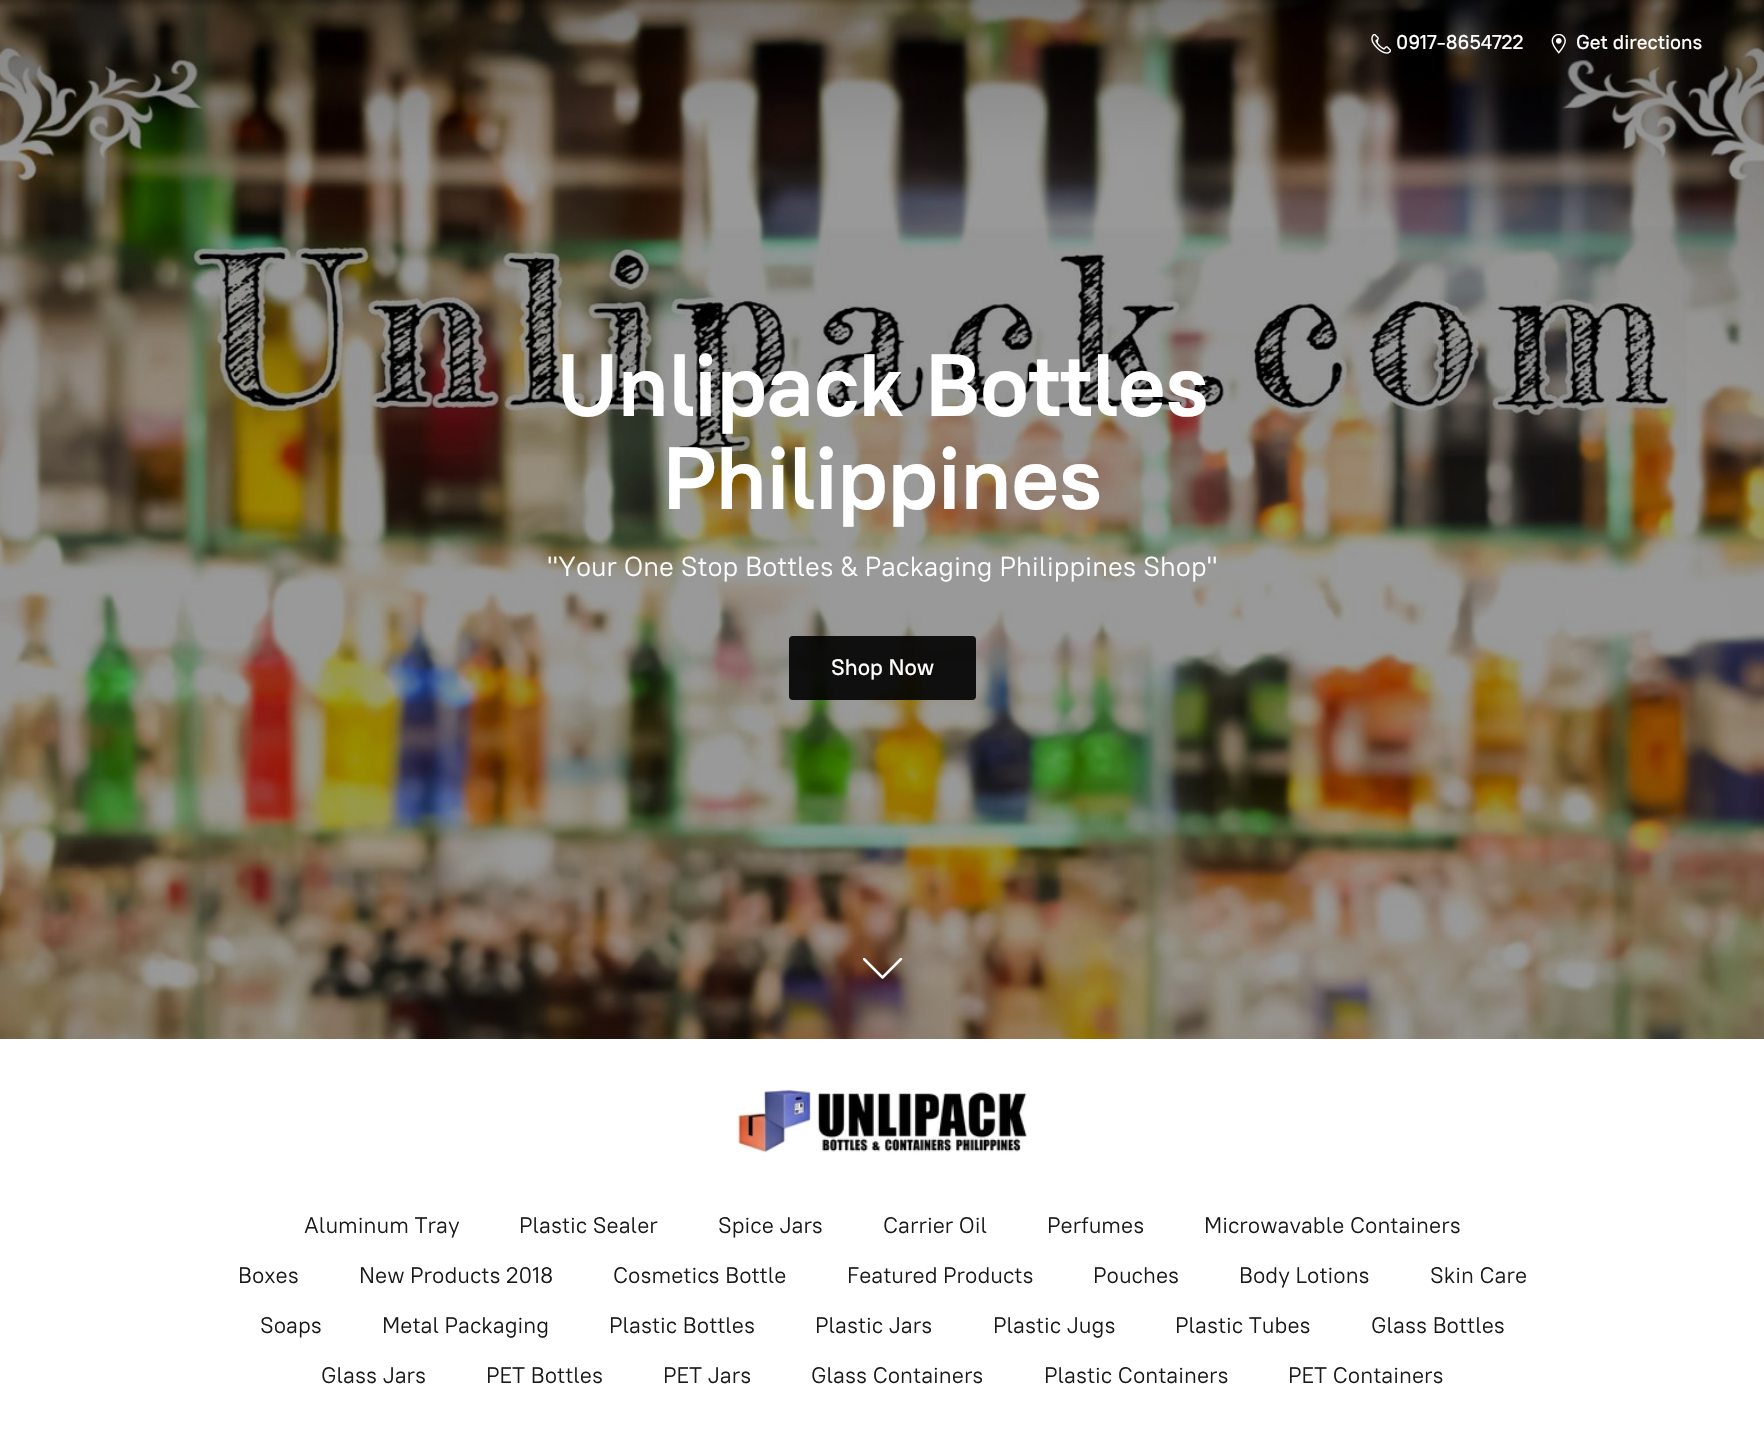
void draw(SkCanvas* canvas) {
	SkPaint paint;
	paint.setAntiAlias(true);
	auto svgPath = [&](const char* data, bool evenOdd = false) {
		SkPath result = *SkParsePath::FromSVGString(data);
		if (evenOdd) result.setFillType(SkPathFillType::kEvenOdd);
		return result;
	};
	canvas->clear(0xffffffff);
	canvas->drawImageRect(SkImages::DeferredFromEncodedData(SkData::MakeFromFileName("img1.png")), SkRect::MakeXYWH(0, 0, 1764, 1039), SkSamplingOptions());
	canvas->drawImageRect(SkImages::DeferredFromEncodedData(SkData::MakeFromFileName("img2.png")), SkRect::MakeXYWH(1371, 34, 20, 20), SkSamplingOptions());
	SkFont f1(fontMgr->matchFamilyStyle("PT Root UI", SkFontStyle(500, SkFontStyle::kNormal_Width, SkFontStyle::kUpright_Slant)), 20);
	f1.setSubpixel(true);
	paint.setColor(0xffffffff);
	canvas->drawString("0917-8654722", 1396, 49, f1, paint);
	canvas->drawImageRect(SkImages::DeferredFromEncodedData(SkData::MakeFromFileName("img3.png")), SkRect::MakeXYWH(1551, 34, 15, 20), SkSamplingOptions());
	canvas->drawString("Get directions", 1576, 49, f1, paint);
	SkFont f2(fontMgr->matchFamilyStyle("PT Root UI", SkFontStyle::Bold()), 88.25);
	f2.setSubpixel(true);
	canvas->drawString("Unlipack Bottles", 557, 416, f2, paint);
	canvas->drawString("Philippines", 663, 509, f2, paint);
	SkFont f3(fontMgr->matchFamilyStyle("PT Root UI", SkFontStyle::Normal()), 27.5);
	f3.setSubpixel(true);
	canvas->drawString("\"Your One Stop Bottles & Packaging Philippines Shop\"", 547, 576, f3, paint);
	paint.setColor(0xe6000000);
	canvas->drawRoundRect(SkRect::MakeXYWH(789, 636, 187, 64), 4, 4, paint);
	SkFont f4(fontMgr->matchFamilyStyle("PT Root UI", SkFontStyle(500, SkFontStyle::kNormal_Width, SkFontStyle::kUpright_Slant)), 22.5);
	f4.setSubpixel(true);
	paint.setColor(0xffffffff);
	canvas->drawString("Shop Now", 831, 675, f4, paint);
	canvas->save();
	canvas->clipRect(SkRect::MakeXYWH(863, 958, 40, 21));
	paint.setStroke(true);
	paint.setStrokeWidth(2.5);
	paint.setStrokeCap(SkPaint::kRound_Cap);
	paint.setStrokeJoin(SkPaint::kRound_Join);
	canvas->drawPath(svgPath("M901 959L882.5 977.5L864 959"), paint);
	canvas->restore();
	canvas->drawImageRect(SkImages::DeferredFromEncodedData(SkData::MakeFromFileName("img4.png")), SkRect::MakeXYWH(736, 1089, 291, 64), SkSamplingOptions());
	SkFont f5(fontMgr->matchFamilyStyle("PT Root UI", SkFontStyle::Normal()), 22.5);
	f5.setSubpixel(true);
	paint.setStroke(false);
	paint.setColor(0xff191919);
	canvas->drawString("Aluminum Tray", 304, 1233, f5, paint);
	canvas->drawString("Plastic Sealer", 519, 1233, f5, paint);
	canvas->drawString("Spice Jars", 718, 1233, f5, paint);
	canvas->drawString("Carrier Oil", 883, 1233, f5, paint);
	canvas->drawString("Perfumes", 1047, 1233, f5, paint);
	canvas->drawString("Microwavable Containers", 1204, 1233, f5, paint);
	canvas->drawString("Boxes", 238, 1283, f5, paint);
	canvas->drawString("New Products 2018", 359, 1283, f5, paint);
	canvas->drawString("Cosmetics Bottle", 613, 1283, f5, paint);
	canvas->drawString("Featured Products", 847, 1283, f5, paint);
	canvas->drawString("Pouches", 1093, 1283, f5, paint);
	canvas->drawString("Body Lotions", 1239, 1283, f5, paint);
	canvas->drawString("Skin Care", 1430, 1283, f5, paint);
	canvas->drawString("Soaps", 260, 1333, f5, paint);
	canvas->drawString("Metal Packaging", 382, 1333, f5, paint);
	canvas->drawString("Plastic Bottles", 609, 1333, f5, paint);
	canvas->drawString("Plastic Jars", 815, 1333, f5, paint);
	canvas->drawString("Plastic Jugs", 993, 1333, f5, paint);
	canvas->drawString("Plastic Tubes", 1175, 1333, f5, paint);
	canvas->drawString("Glass Bottles", 1371, 1333, f5, paint);
	canvas->drawString("Glass Jars", 321, 1383, f5, paint);
	canvas->drawString("PET Bottles", 486, 1383, f5, paint);
	canvas->drawString("PET Jars", 663, 1383, f5, paint);
	canvas->drawString("Glass Containers", 811, 1383, f5, paint);
	canvas->drawString("Plastic Containers", 1044, 1383, f5, paint);
	canvas->drawString("PET Containers", 1288, 1383, f5, paint);
}
